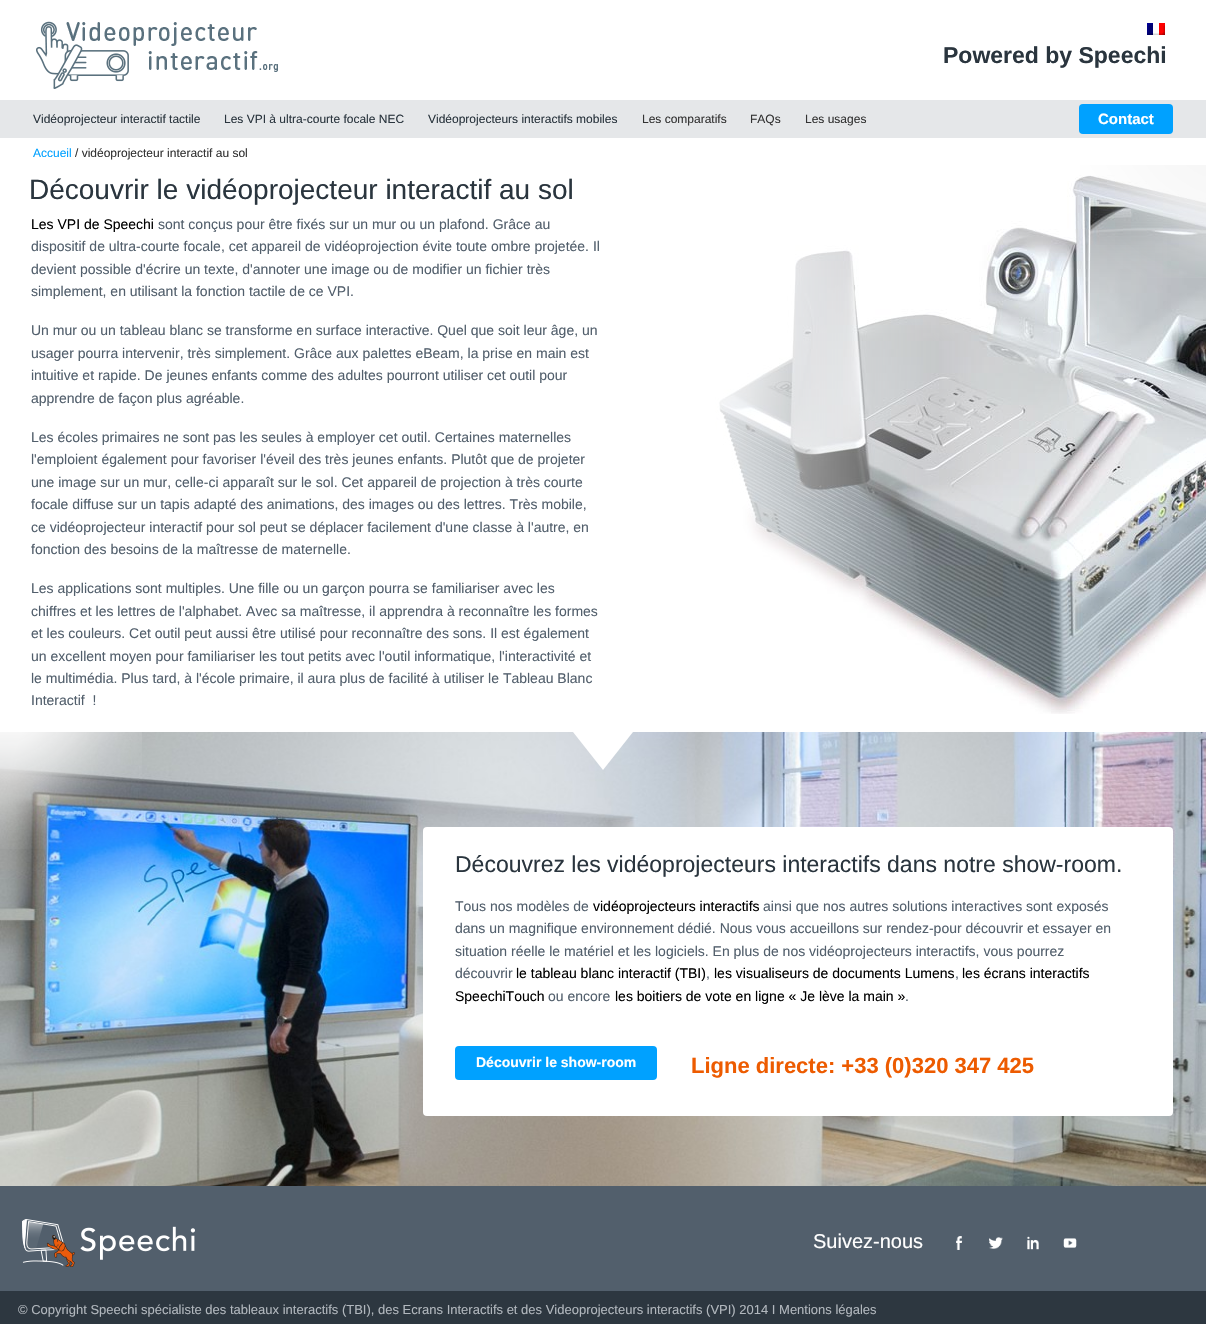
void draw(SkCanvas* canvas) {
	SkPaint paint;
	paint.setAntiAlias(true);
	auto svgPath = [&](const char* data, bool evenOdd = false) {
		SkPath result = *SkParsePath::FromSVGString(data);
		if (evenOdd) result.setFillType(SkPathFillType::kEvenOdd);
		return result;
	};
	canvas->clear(0xffffffff);
	canvas->drawImageRect(SkImages::DeferredFromEncodedData(SkData::MakeFromFileName("img1.png")), SkRect::MakeXYWH(36, 21, 242, 68), SkSamplingOptions());
	canvas->drawImageRect(SkImages::DeferredFromEncodedData(SkData::MakeFromFileName("img2.png")), SkRect::MakeXYWH(1147, 23, 18, 12), SkSamplingOptions());
	SkFont f1(fontMgr->matchFamilyStyle("Liberation Sans", SkFontStyle::Bold()), 23);
	f1.setSubpixel(true);
	paint.setColor(0xff2a353e);
	canvas->drawString("Powered by Speechi", 943, 63, f1, paint);
	paint.setColor(0xffe5e7e9);
	canvas->drawRect(SkRect::MakeXYWH(0, 100, 1206, 38), paint);
	SkFont f2(fontMgr->matchFamilyStyle("Liberation Sans", SkFontStyle::Normal()), 12);
	f2.setSubpixel(true);
	paint.setColor(0xff2a353e);
	canvas->drawString("Vidéoprojecteur interactif tactile", 33, 123, f2, paint);
	canvas->drawString("Les VPI à ultra-courte focale NEC", 224, 123, f2, paint);
	canvas->drawString("Vidéoprojecteurs interactifs mobiles", 428, 123, f2, paint);
	paint.setColor(0xff333333);
	canvas->drawString("Les comparatifs", 642, 123, f2, paint);
	canvas->drawString("FAQs", 750, 123, f2, paint);
	canvas->drawString("Les usages", 805, 123, f2, paint);
	paint.setColor(0xff00a1ff);
	canvas->drawRoundRect(SkRect::MakeXYWH(1079, 104, 94, 30), 4, 4, paint);
	SkFont f3(fontMgr->matchFamilyStyle("Liberation Sans", SkFontStyle::Bold()), 15);
	f3.setSubpixel(true);
	paint.setColor(0xffffffff);
	canvas->drawString("Contact", 1098, 124, f3, paint);
	paint.setColor(0xff00a1ff);
	canvas->drawString("Accueil", 33, 157, f2, paint);
	paint.setColor(0xff333333);
	canvas->drawString("/ vidéoprojecteur interactif au sol", 75, 157, f2, paint);
	SkFont f4(fontMgr->matchFamilyStyle("Liberation Sans", SkFontStyle::Normal()), 28);
	f4.setSubpixel(true);
	paint.setColor(0xff2a353e);
	canvas->drawString("Découvrir le vidéoprojecteur interactif au sol", 29, 199, f4, paint);
	SkFont f5(fontMgr->matchFamilyStyle("Liberation Sans", SkFontStyle::Normal()), 14);
	f5.setSubpixel(true);
	paint.setColor(0xff000000);
	canvas->drawString("Les VPI de Speechi", 31, 229, f5, paint);
	paint.setColor(0xff525f6c);
	canvas->drawString("sont conçus pour être fixés sur un mur ou un plafond. Grâce au", 158, 229, f5, paint);
	canvas->drawString("dispositif de ultra-courte focale, cet appareil de vidéoprojection évite toute ombre projetée. Il", 31, 251, f5, paint);
	canvas->drawString("devient possible d'écrire un texte, d'annoter une image ou de modifier un fichier très", 31, 274, f5, paint);
	canvas->drawString("simplement, en utilisant la fonction tactile de ce VPI.", 31, 296, f5, paint);
	canvas->drawString("Un mur ou un tableau blanc se transforme en surface interactive. Quel que soit leur âge, un", 31, 335, f5, paint);
	canvas->drawString("usager pourra intervenir, très simplement. Grâce aux palettes eBeam, la prise en main est", 31, 358, f5, paint);
	canvas->drawString("intuitive et rapide. De jeunes enfants comme des adultes pourront utiliser cet outil pour", 31, 380, f5, paint);
	canvas->drawString("apprendre de façon plus agréable.", 31, 403, f5, paint);
	canvas->drawString("Les écoles primaires ne sont pas les seules à employer cet outil. Certaines maternelles", 31, 442, f5, paint);
	canvas->drawString("l'emploient également pour favoriser l'éveil des très jeunes enfants. Plutôt que de projeter", 31, 464, f5, paint);
	canvas->drawString("une image sur un mur, celle-ci apparaît sur le sol. Cet appareil de projection à très courte", 31, 487, f5, paint);
	canvas->drawString("focale diffuse sur un tapis adapté des animations, des images ou des lettres. Très mobile,", 31, 509, f5, paint);
	canvas->drawString("ce vidéoprojecteur interactif pour sol peut se déplacer facilement d'une classe à l'autre, en", 31, 532, f5, paint);
	canvas->drawString("fonction des besoins de la maîtresse de maternelle.", 31, 554, f5, paint);
	canvas->drawString("Les applications sont multiples. Une fille ou un garçon pourra se familiariser avec les", 31, 593, f5, paint);
	canvas->drawString("chiffres et les lettres de l'alphabet. Avec sa maîtresse, il apprendra à reconnaître les formes", 31, 616, f5, paint);
	canvas->drawString("et les couleurs. Cet outil peut aussi être utilisé pour reconnaître des sons. Il est également", 31, 638, f5, paint);
	canvas->drawString("un excellent moyen pour familiariser les tout petits avec l'outil informatique, l'interactivité et", 31, 661, f5, paint);
	canvas->drawString("le multimédia. Plus tard, à l'école primaire, il aura plus de facilité à utiliser le Tableau Blanc", 31, 683, f5, paint);
	canvas->drawString("Interactif  !", 31, 705, f5, paint);
	canvas->drawImageRect(SkImages::DeferredFromEncodedData(SkData::MakeFromFileName("img4.png")), SkRect::MakeXYWH(715, 175, 491, 539), SkSamplingOptions());
	{
		const SkColor colors[] = {0x00000000, 0x00000000, 0x00ffffff, 0x1affffff, 0x33ffffff, 0x99ffffff, 0xe6ffffff, 0xffffffff};
		const float stops[] = {0, 0.03, 0.04, 0.26, 0.46, 0.7, 0.9, 1};
		const SkPoint ends[] = {{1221, 461}, {603, 461}};
		paint.setShader(SkGradientShader::MakeLinear(ends, colors, stops, 8, SkTileMode::kClamp));
		paint.setAlpha(255);
	}
	canvas->drawRect(SkRect::MakeXYWH(715, 176, 452, 533), paint);
	canvas->drawImageRect(SkImages::DeferredFromEncodedData(SkData::MakeFromFileName("img3.png")), SkRect::MakeXYWH(1080, 165, 126, 113), SkSamplingOptions());
	canvas->drawImageRect(SkImages::DeferredFromEncodedData(SkData::MakeFromFileName("img5.png")), SkRect::MakeXYWH(0, 732, 1206, 454), SkSamplingOptions());
	paint.setShader(nullptr);
	paint.setColor(0xffffffff);
	canvas->drawPath(svgPath("M573 732H633L603 770Z"), paint);
	canvas->drawImageRect(SkImages::DeferredFromEncodedData(SkData::MakeFromFileName("img6.png")), SkRect::MakeXYWH(0, 732, 142, 117), SkSamplingOptions());
	canvas->drawRoundRect(SkRect::MakeXYWH(423, 827, 750, 289), 4, 4, paint);
	SkFont f6(fontMgr->matchFamilyStyle("Liberation Sans", SkFontStyle::Normal()), 23);
	f6.setSubpixel(true);
	paint.setColor(0xff2a353e);
	canvas->drawString("Découvrez les vidéoprojecteurs interactifs dans notre show-room.", 455, 872, f6, paint);
	paint.setColor(0xff525f6c);
	canvas->drawString("Tous nos modèles de", 455, 911, f5, paint);
	paint.setColor(0xff000000);
	canvas->drawString("vidéoprojecteurs interactifs", 593, 911, f5, paint);
	paint.setColor(0xff525f6c);
	canvas->drawString("ainsi que nos autres solutions interactives sont exposés", 763, 911, f5, paint);
	canvas->drawString("dans un magnifique environnement dédié. Nous vous accueillons sur rendez-pour découvrir et essayer en", 455, 933, f5, paint);
	canvas->drawString("situation réelle le matériel et les logiciels. En plus de nos vidéoprojecteurs interactifs, vous pourrez", 455, 956, f5, paint);
	canvas->drawString("découvrir", 455, 978, f5, paint);
	paint.setColor(0xff000000);
	canvas->drawString("le tableau blanc interactif (TBI)", 516, 978, f5, paint);
	paint.setColor(0xff525f6c);
	canvas->drawString(",", 706, 978, f5, paint);
	paint.setColor(0xff000000);
	canvas->drawString("les visualiseurs de documents Lumens", 714, 978, f5, paint);
	paint.setColor(0xff525f6c);
	canvas->drawString(",", 955, 978, f5, paint);
	paint.setColor(0xff000000);
	canvas->drawString("les écrans interactifs", 962, 978, f5, paint);
	canvas->drawString("SpeechiTouch", 455, 1001, f5, paint);
	paint.setColor(0xff525f6c);
	canvas->drawString("ou encore", 548, 1001, f5, paint);
	paint.setColor(0xff000000);
	canvas->drawString("les boitiers de vote en ligne « Je lève la main »", 615, 1001, f5, paint);
	paint.setColor(0xff525f6c);
	canvas->drawString(".", 905, 1001, f5, paint);
	paint.setColor(0xff00a1ff);
	canvas->drawRoundRect(SkRect::MakeXYWH(455, 1046, 202, 34), 4, 4, paint);
	SkFont f7(fontMgr->matchFamilyStyle("Liberation Sans", SkFontStyle::Bold()), 14);
	f7.setSubpixel(true);
	paint.setColor(0xffffffff);
	canvas->drawString("Découvrir le show-room", 476, 1067, f7, paint);
	SkFont f8(fontMgr->matchFamilyStyle("Liberation Sans", SkFontStyle::Bold()), 22);
	f8.setSubpixel(true);
	paint.setColor(0xffed5b00);
	canvas->drawString("Ligne directe: +33 (0)320 347 425", 691, 1073, f8, paint);
	paint.setColor(0xff525f6c);
	canvas->drawRect(SkRect::MakeXYWH(0, 1186, 1206, 105), paint);
	canvas->drawImageRect(SkImages::DeferredFromEncodedData(SkData::MakeFromFileName("img7.png")), SkRect::MakeXYWH(22, 1219, 173, 48), SkSamplingOptions());
	SkFont f9(fontMgr->matchFamilyStyle("Liberation Sans", SkFontStyle::Normal()), 20);
	f9.setSubpixel(true);
	paint.setColor(0xffffffff);
	canvas->drawString("Suivez-nous", 813, 1248, f9, paint);
	canvas->drawImageRect(SkImages::DeferredFromEncodedData(SkData::MakeFromFileName("img8.png")), SkRect::MakeXYWH(956, 1236, 7, 14), SkSamplingOptions());
	canvas->drawImageRect(SkImages::DeferredFromEncodedData(SkData::MakeFromFileName("img9.png")), SkRect::MakeXYWH(989, 1237, 14, 12), SkSamplingOptions());
	canvas->drawImageRect(SkImages::DeferredFromEncodedData(SkData::MakeFromFileName("img10.png")), SkRect::MakeXYWH(1027, 1236, 12, 14), SkSamplingOptions());
	canvas->drawImageRect(SkImages::DeferredFromEncodedData(SkData::MakeFromFileName("img11.png")), SkRect::MakeXYWH(1063, 1238, 14, 10), SkSamplingOptions());
	paint.setColor(0xff2d3740);
	canvas->drawRect(SkRect::MakeXYWH(0, 1291, 1206, 33), paint);
	SkFont f10(fontMgr->matchFamilyStyle("Liberation Sans", SkFontStyle::Normal()), 13);
	f10.setSubpixel(true);
	paint.setColor(0xffb1b7bd);
	canvas->drawString("© Copyright Speechi spécialiste des tableaux interactifs (TBI), des Ecrans Interactifs et des Videoprojecteurs interactifs (VPI) 2014 I Mentions légales", 18, 1314, f10, paint);
}
